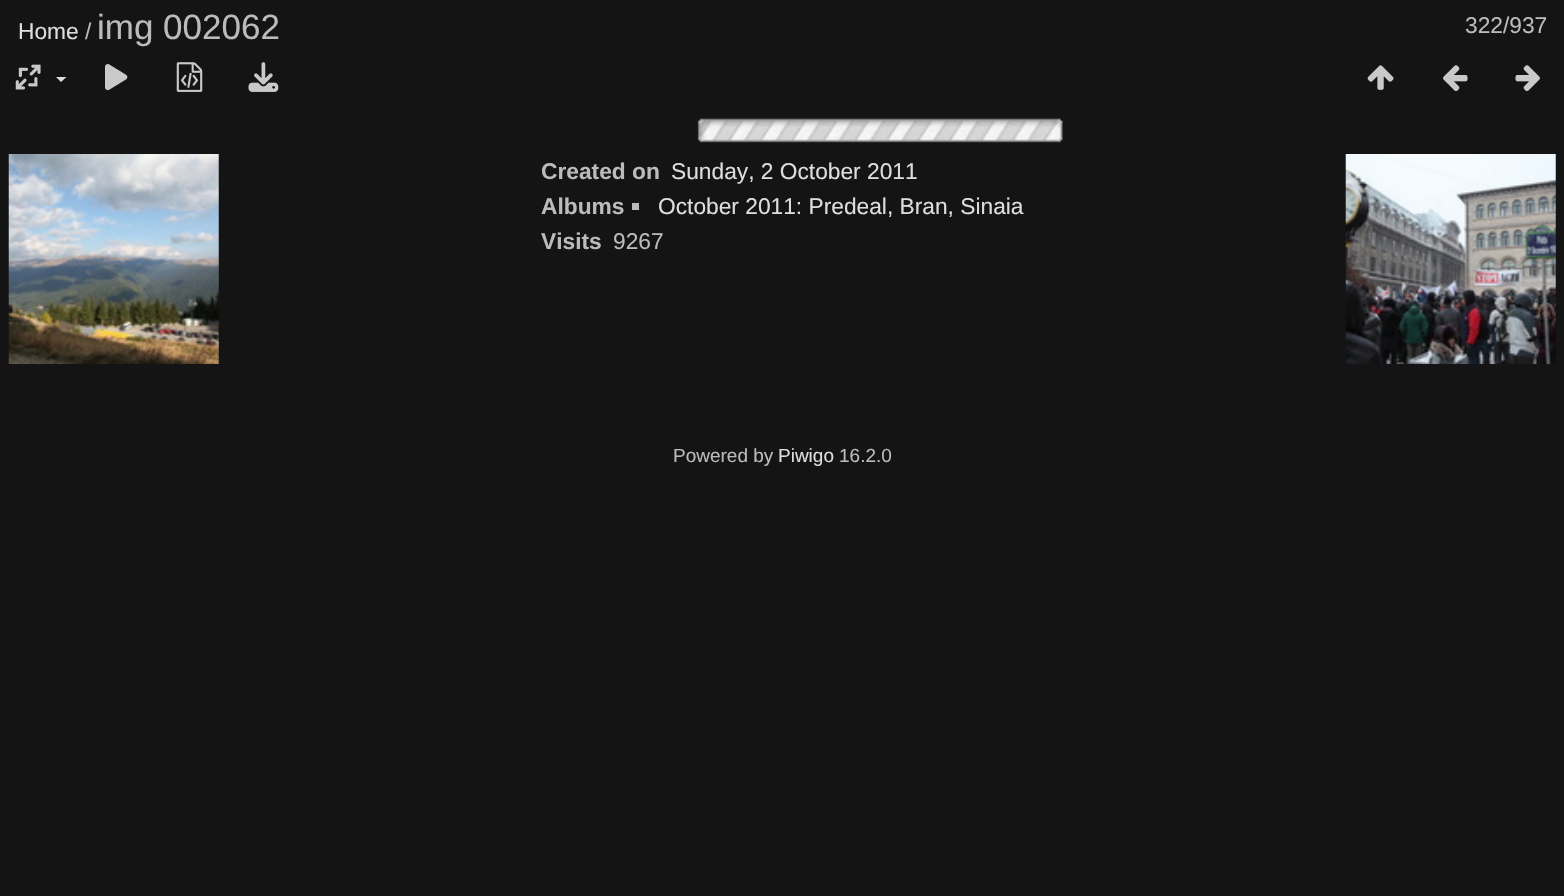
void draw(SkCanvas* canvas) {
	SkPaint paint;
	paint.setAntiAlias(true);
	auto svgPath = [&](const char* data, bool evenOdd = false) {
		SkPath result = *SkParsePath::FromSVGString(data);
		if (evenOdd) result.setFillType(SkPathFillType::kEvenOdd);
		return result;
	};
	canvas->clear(0xff141414);
	SkFont f1(fontMgr->matchFamilyStyle("Liberation Sans", SkFontStyle::Normal()), 22.75);
	f1.setSubpixel(true);
	paint.setColor(0xffdddddd);
	canvas->drawString("Home", 18, 39, f1, paint);
	paint.setColor(0xffbbbbbb);
	canvas->drawString("/", 85, 39, f1, paint);
	SkFont f2(fontMgr->matchFamilyStyle("Liberation Sans", SkFontStyle::Normal()), 35);
	f2.setSubpixel(true);
	canvas->drawString("img 002062", 97, 39, f2, paint);
	canvas->drawString("322/937", 1465, 33, f1, paint);
	canvas->drawImageRect(SkImages::DeferredFromEncodedData(SkData::MakeFromFileName("img1.png")), SkRect::MakeXYWH(15, 64, 26, 26), SkSamplingOptions());
	paint.setColor(0xffdddddd);
	canvas->drawPath(svgPath("M56 77H66.5L61 82Z"), paint);
	canvas->drawImageRect(SkImages::DeferredFromEncodedData(SkData::MakeFromFileName("img2.png")), SkRect::MakeXYWH(105, 64, 23, 27), SkSamplingOptions());
	canvas->drawImageRect(SkImages::DeferredFromEncodedData(SkData::MakeFromFileName("img3.png")), SkRect::MakeXYWH(176, 62, 27, 30), SkSamplingOptions());
	canvas->drawImageRect(SkImages::DeferredFromEncodedData(SkData::MakeFromFileName("img4.png")), SkRect::MakeXYWH(248, 62, 31, 30), SkSamplingOptions());
	canvas->drawImageRect(SkImages::DeferredFromEncodedData(SkData::MakeFromFileName("img5.png")), SkRect::MakeXYWH(1367, 65, 27, 25), SkSamplingOptions());
	canvas->drawImageRect(SkImages::DeferredFromEncodedData(SkData::MakeFromFileName("img6.png")), SkRect::MakeXYWH(1443, 65, 25, 26), SkSamplingOptions());
	canvas->drawImageRect(SkImages::DeferredFromEncodedData(SkData::MakeFromFileName("img7.png")), SkRect::MakeXYWH(1515, 65, 25, 26), SkSamplingOptions());
	canvas->drawImageRect(SkImages::DeferredFromEncodedData(SkData::MakeFromFileName("img8.png")), SkRect::MakeXYWH(697, 118, 366, 25), SkSamplingOptions());
	canvas->drawImageRect(SkImages::DeferredFromEncodedData(SkData::MakeFromFileName("img9.png")), SkRect::MakeXYWH(8, 154, 211, 210), SkSamplingOptions());
	canvas->drawImageRect(SkImages::DeferredFromEncodedData(SkData::MakeFromFileName("img10.png")), SkRect::MakeXYWH(1345, 154, 211, 210), SkSamplingOptions());
	SkFont f3(fontMgr->matchFamilyStyle("Liberation Sans", SkFontStyle::Bold()), 22.75);
	f3.setSubpixel(true);
	paint.setColor(0xffbbbbbb);
	canvas->drawString("Created on", 541, 179, f3, paint);
	paint.setColor(0xffdddddd);
	canvas->drawString("Sunday, 2 October 2011", 671, 179, f1, paint);
	paint.setColor(0xffbbbbbb);
	canvas->drawString("Albums", 541, 214, f3, paint);
	canvas->drawRect(SkRect::MakeXYWH(632, 203, 7, 7), paint);
	paint.setColor(0xffdddddd);
	canvas->drawString("October 2011: Predeal, Bran, Sinaia", 658, 214, f1, paint);
	paint.setColor(0xffbbbbbb);
	canvas->drawString("Visits", 541, 249, f3, paint);
	canvas->drawString("9267", 613, 249, f1, paint);
	SkFont f4(fontMgr->matchFamilyStyle("Liberation Sans", SkFontStyle::Normal()), 19);
	f4.setSubpixel(true);
	canvas->drawString("Powered by", 673, 462, f4, paint);
	paint.setColor(0xffdddddd);
	canvas->drawString("Piwigo", 778, 462, f4, paint);
	paint.setColor(0xffbbbbbb);
	canvas->drawString("16.2.0", 839, 462, f4, paint);
}
